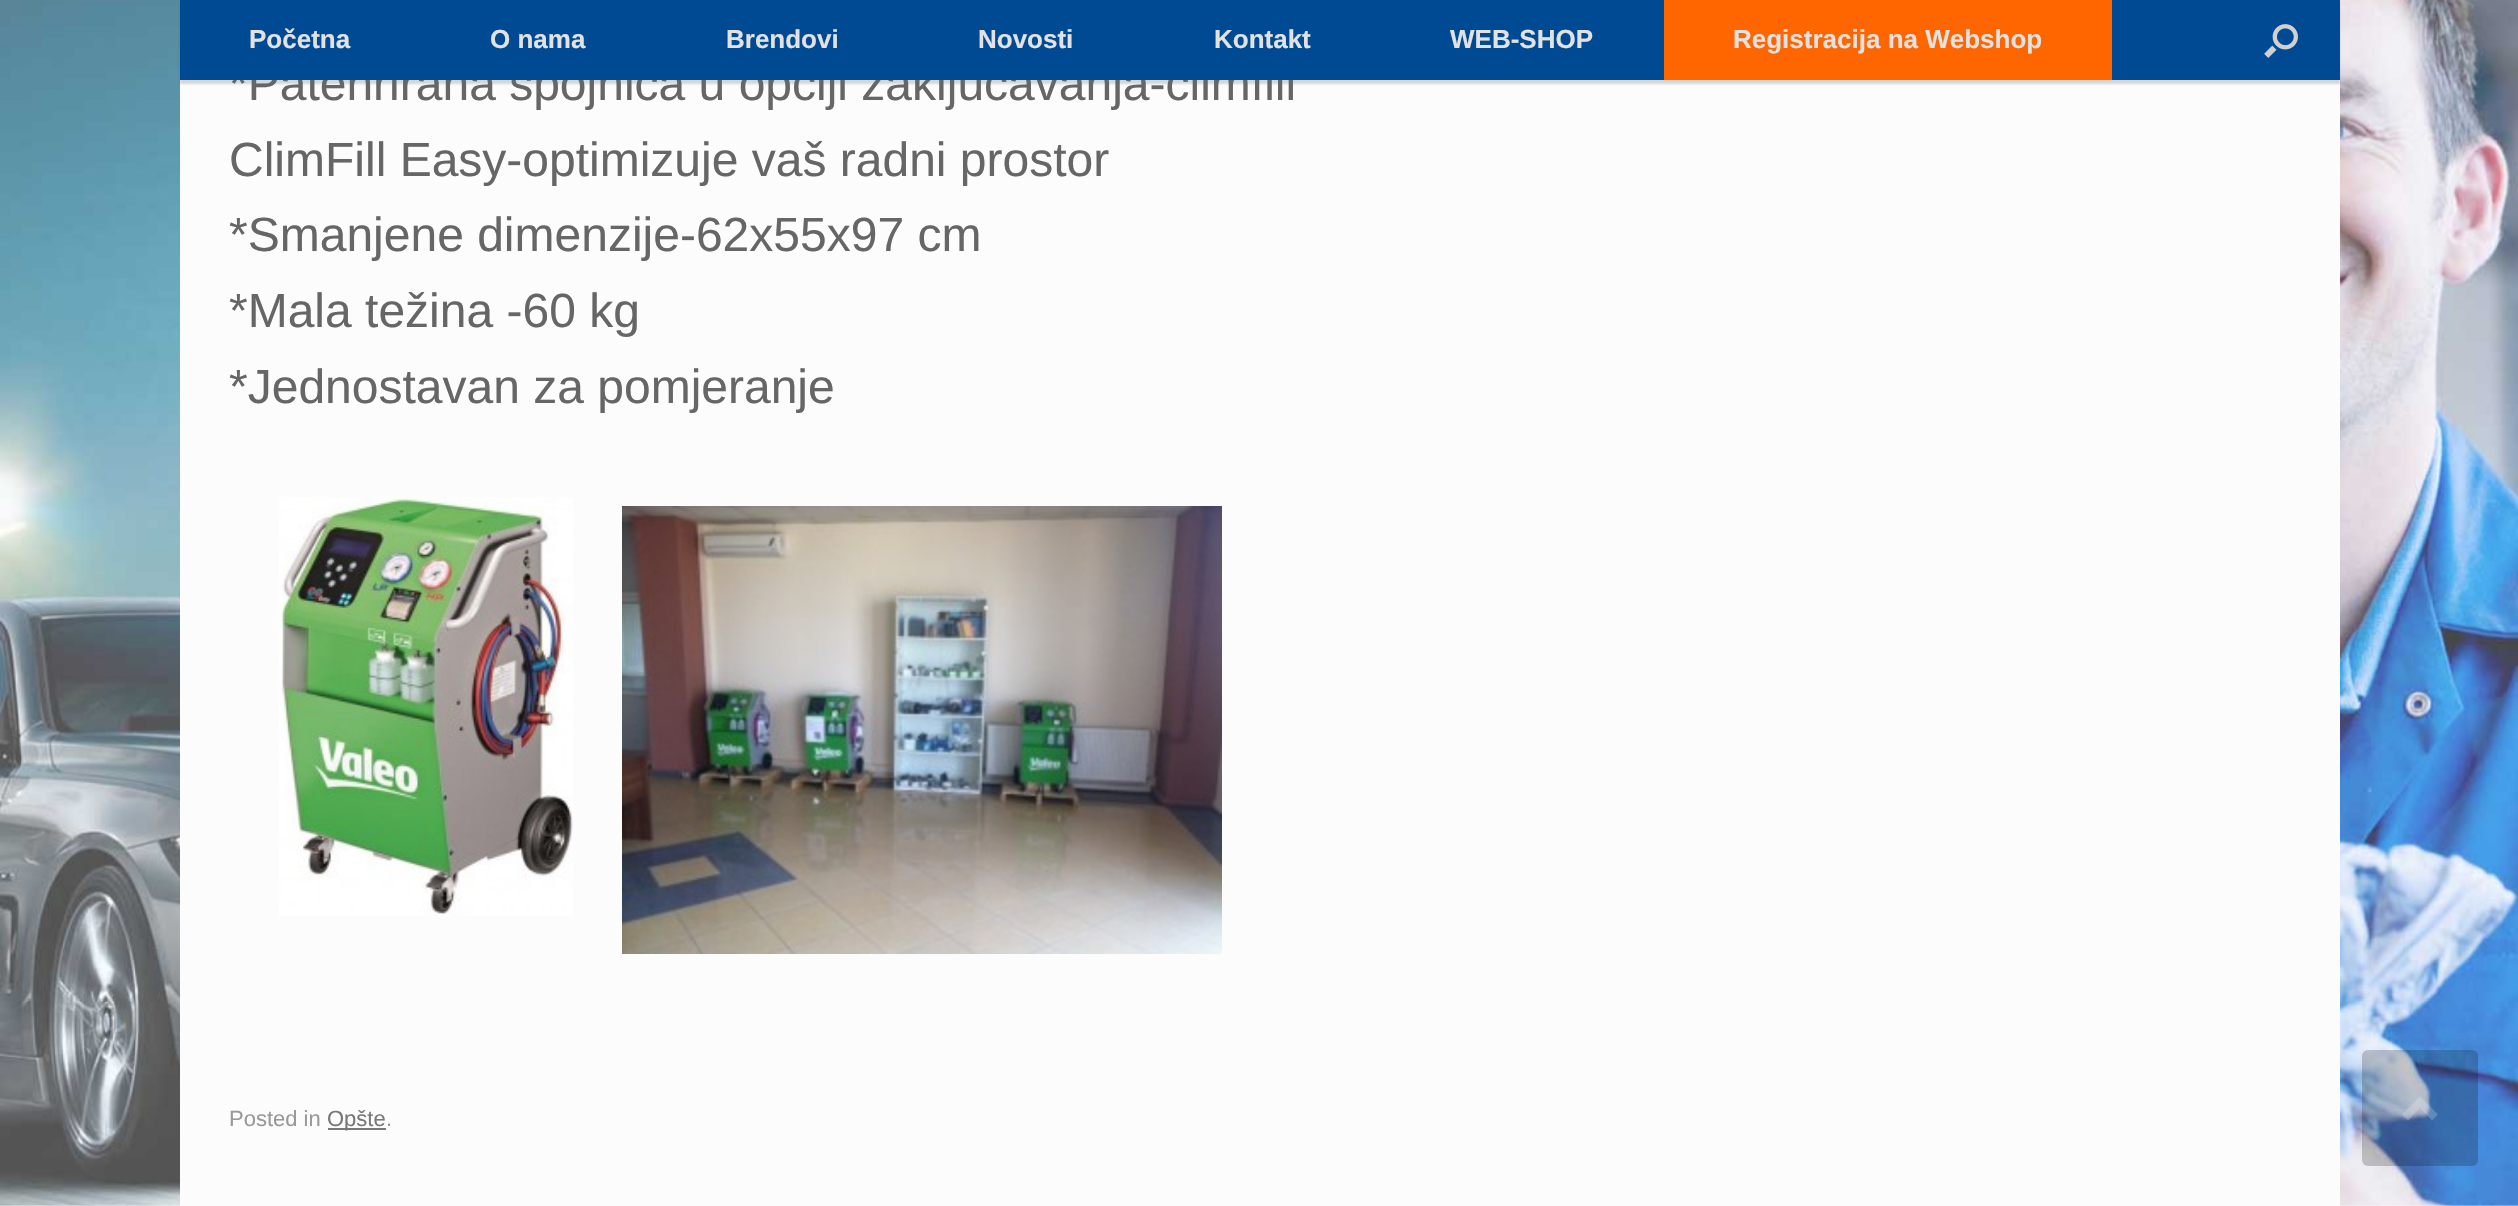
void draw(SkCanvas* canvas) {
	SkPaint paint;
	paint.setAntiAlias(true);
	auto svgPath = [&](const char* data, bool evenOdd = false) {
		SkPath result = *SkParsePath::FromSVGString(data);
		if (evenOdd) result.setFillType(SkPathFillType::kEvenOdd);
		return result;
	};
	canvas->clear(0xffffffff);
	canvas->drawImageRect(SkImages::DeferredFromEncodedData(SkData::MakeFromFileName("img1.png")), SkRect::MakeXYWH(0, 0, 2518, 1206), SkSamplingOptions());
	paint.setColor(0xfffcfcfc);
	canvas->drawRect(SkRect::MakeXYWH(180, 80, 2160, 1126), paint);
	paint.setColor(0x26000000);
	paint.setMaskFilter(SkMaskFilter::MakeBlur(kNormal_SkBlurStyle, 1));
	canvas->drawRect(SkRect::MakeXYWH(180, 4, 2160, 80), paint);
	paint.setMaskFilter(nullptr);
	SkFont f1(fontMgr->matchFamilyStyle("Liberation Sans", SkFontStyle::Normal()), 48);
	f1.setSubpixel(true);
	paint.setColor(0xff666666);
	canvas->drawString("*Patenrirana spojnica u opciji zaključavanja-climfill", 229, 100, f1, paint);
	paint.setColor(0xff004a93);
	canvas->drawRect(SkRect::MakeXYWH(180, 0, 2160, 80), paint);
	SkFont f2(fontMgr->matchFamilyStyle("Liberation Sans", SkFontStyle::Bold()), 26);
	f2.setSubpixel(true);
	paint.setColor(0xffe2e2e2);
	canvas->drawString("Početna", 249, 48, f2, paint);
	canvas->drawString("O nama", 490, 48, f2, paint);
	canvas->drawString("Brendovi", 726, 48, f2, paint);
	canvas->drawString("Novosti", 978, 48, f2, paint);
	canvas->drawString("Kontakt", 1214, 48, f2, paint);
	canvas->drawString("WEB-SHOP", 1450, 48, f2, paint);
	paint.setColor(0xffff6600);
	canvas->drawRect(SkRect::MakeXYWH(1664, 0, 448, 80), paint);
	paint.setColor(0xffe2e2e2);
	canvas->drawString("Registracija na Webshop", 1733, 48, f2, paint);
	canvas->drawImageRect(SkImages::DeferredFromEncodedData(SkData::MakeFromFileName("img2.png")), SkRect::MakeXYWH(2264, 24, 34, 34), SkSamplingOptions());
	paint.setColor(0xff666666);
	canvas->drawString("ClimFill Easy-optimizuje vaš radni prostor", 229, 176, f1, paint);
	canvas->drawString("*Smanjene dimenzije-62x55x97 cm", 229, 251, f1, paint);
	canvas->drawString("*Mala težina -60 kg", 229, 327, f1, paint);
	canvas->drawString("*Jednostavan za pomjeranje", 229, 403, f1, paint);
	canvas->drawImageRect(SkImages::DeferredFromEncodedData(SkData::MakeFromFileName("img3.png")), SkRect::MakeXYWH(279, 497, 294, 419), SkSamplingOptions());
	canvas->drawImageRect(SkImages::DeferredFromEncodedData(SkData::MakeFromFileName("img4.png")), SkRect::MakeXYWH(622, 506, 600, 448), SkSamplingOptions());
	SkFont f3(fontMgr->matchFamilyStyle("Liberation Sans", SkFontStyle::Normal()), 22);
	f3.setSubpixel(true);
	paint.setColor(0xff999999);
	canvas->drawString("Posted in", 229, 1126, f3, paint);
	paint.setColor(0xff777777);
	canvas->drawRect(SkRect::MakeXYWH(328, 1128, 58, 2), paint);
	canvas->drawString("Opšte", 327, 1126, f3, paint);
	paint.setColor(0xff999999);
	canvas->drawString(".", 386, 1126, f3, paint);
	paint.setColor(0x33000000);
	canvas->drawRoundRect(SkRect::MakeXYWH(2362, 1050, 116, 116), 6, 6, paint);
	paint.setColor(0x33ffffff);
	canvas->drawPath(svgPath("M2438 1114.5L2420 1096.5L2402 1114.5L2408 1120.5L2420 1108L2432 1120.5Z"), paint);
}
